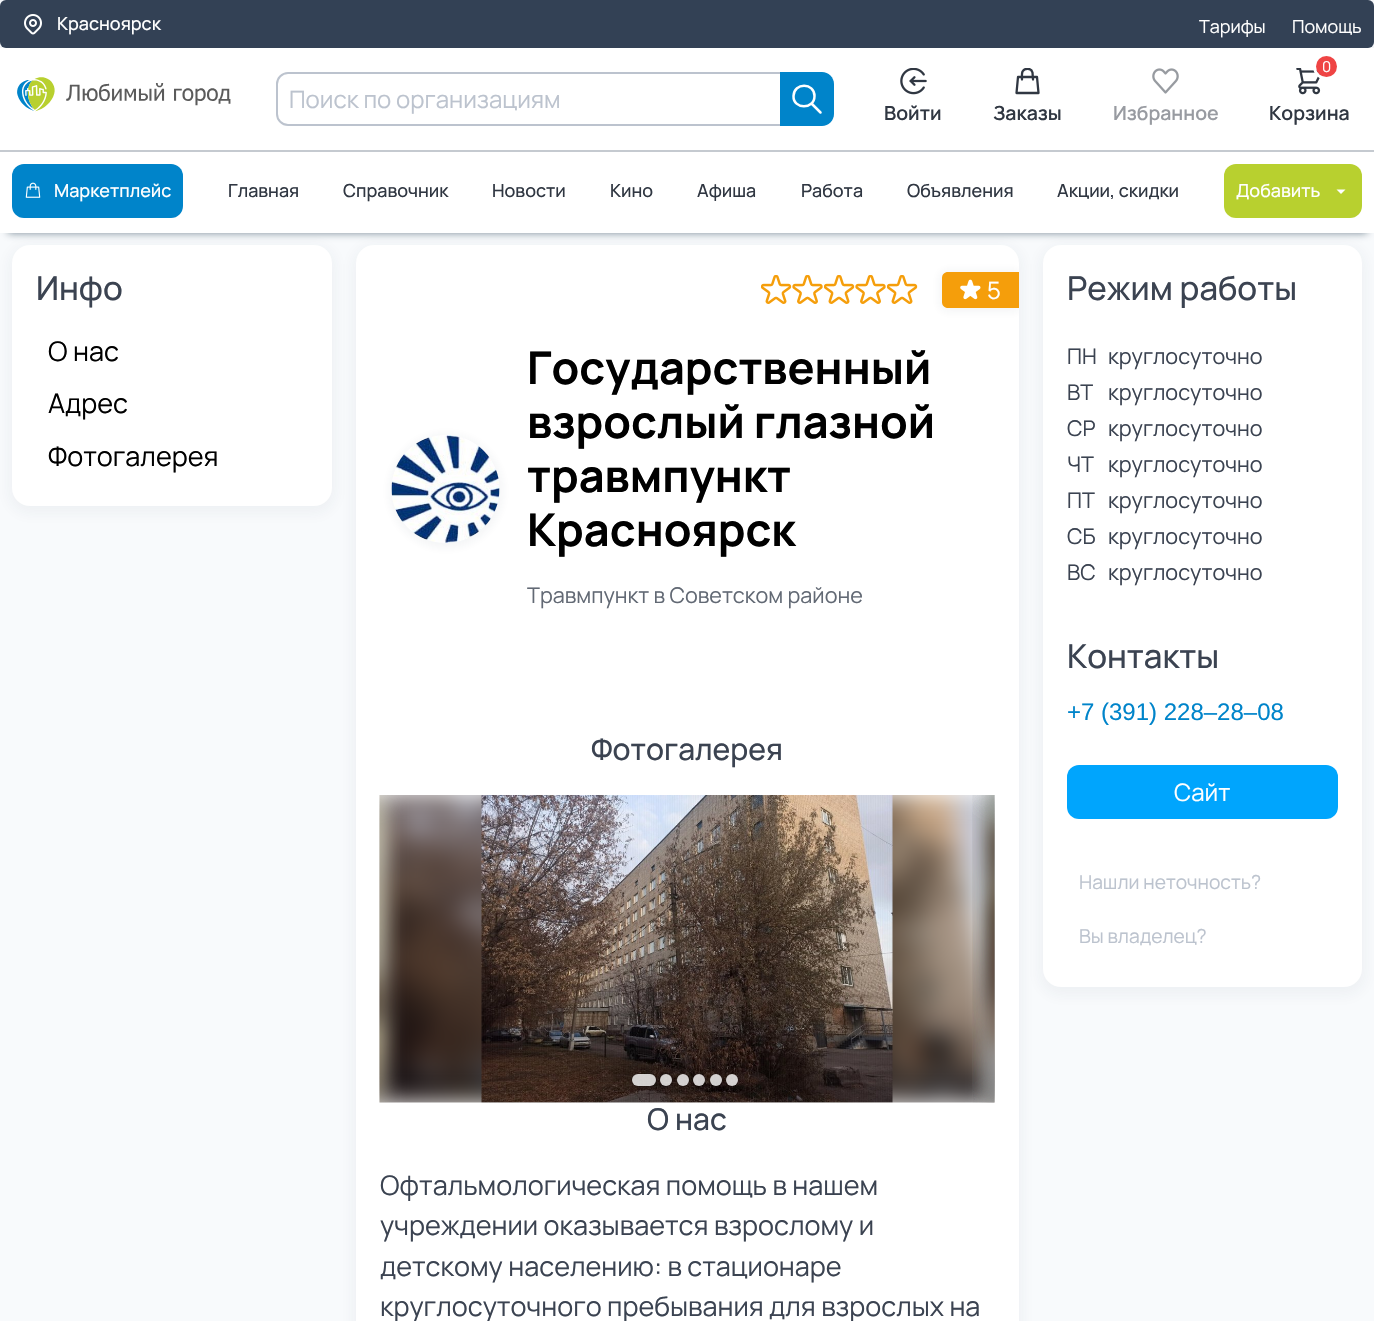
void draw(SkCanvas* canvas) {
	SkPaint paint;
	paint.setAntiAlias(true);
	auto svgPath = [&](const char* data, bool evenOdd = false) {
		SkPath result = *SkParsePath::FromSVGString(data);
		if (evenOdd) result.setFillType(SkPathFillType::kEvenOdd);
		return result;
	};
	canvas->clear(0xfff8fafc);
	paint.setColor(0x0d223c50);
	paint.setMaskFilter(SkMaskFilter::MakeBlur(kNormal_SkBlurStyle, 7.5));
	canvas->drawRoundRect(SkRect::MakeXYWH(-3, 2, 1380, 54), 9, 9, paint);
	paint.setMaskFilter(nullptr);
	paint.setColor(0xff334155);
	canvas->drawRoundRect(SkRect::MakeXYWH(0, 0, 1374, 48), 6, 6, paint);
	canvas->drawImageRect(SkImages::DeferredFromEncodedData(SkData::MakeFromFileName("img1.png")), SkRect::MakeXYWH(24, 14, 18, 21), SkSamplingOptions());
	SkFont f1(fontMgr->matchFamilyStyle("Manrope", SkFontStyle(500, SkFontStyle::kNormal_Width, SkFontStyle::kUpright_Slant)), 18);
	f1.setSubpixel(true);
	paint.setColor(0xffffffff);
	canvas->drawString("Красноярск", 57, 30, f1, paint);
	SkFont f2(fontMgr->matchFamilyStyle("Manrope", SkFontStyle::Normal()), 18);
	f2.setSubpixel(true);
	canvas->drawString("Тарифы", 1199, 33, f2, paint);
	canvas->drawString("Помощь", 1292, 33, f2, paint);
	canvas->drawRect(SkRect::MakeXYWH(0, 48, 1374, 102), paint);
	paint.setColor(0xffc5cad0);
	canvas->drawRect(SkRect::MakeXYWH(0, 150, 1374, 2), paint);
	canvas->drawImageRect(SkImages::DeferredFromEncodedData(SkData::MakeFromFileName("img2.png")), SkRect::MakeXYWH(17, 77, 214, 35), SkSamplingOptions());
	paint.setStroke(true);
	paint.setStrokeWidth(2);
	paint.setColor(0xffbcc3ce);
	canvas->drawPath(svgPath("M288 73H781V125H288C282 125 277 120 277 114V84C277 78 282 73 288 73Z"), paint);
	SkFont f3(fontMgr->matchFamilyStyle("Manrope", SkFontStyle::Normal()), 24);
	f3.setSubpixel(true);
	paint.setStroke(false);
	canvas->drawString("Поиск по организациям", 289, 108, f3, paint);
	paint.setColor(0xff0084ca);
	canvas->drawPath(svgPath("M780 72H822C828.5 72 834 77.5 834 84V114C834 120.5 828.5 126 822 126H780Z"), paint);
	paint.setStroke(true);
	paint.setStrokeWidth(2.5);
	paint.setStrokeCap(SkPaint::kRound_Cap);
	paint.setStrokeJoin(SkPaint::kRound_Join);
	paint.setColor(0xffffffff);
	canvas->drawPath(svgPath("M820.5 112.5L811.5 103.5M814.5 96C814.5 110 793 109.5 793.5 96C794 82 814.5 82.5 814.5 96Z"), paint);
	canvas->drawImageRect(SkImages::DeferredFromEncodedData(SkData::MakeFromFileName("img3.png")), SkRect::MakeXYWH(900, 68, 27, 27), SkSamplingOptions());
	SkFont f4(fontMgr->matchFamilyStyle("Manrope", SkFontStyle(600, SkFontStyle::kNormal_Width, SkFontStyle::kUpright_Slant)), 19.5);
	f4.setSubpixel(true);
	paint.setStroke(false);
	paint.setColor(0xff303742);
	canvas->drawString("Войти", 884, 120, f4, paint);
	canvas->save();
	canvas->clipRect(SkRect::MakeXYWH(1014, 68, 27, 27));
	paint.setStroke(true);
	paint.setStrokeWidth(2.3);
	canvas->drawPath(svgPath("M1033 79.5L1032.5 72.5C1031.5 68 1025 67.5 1022.5 71.5C1021.5 74 1022 77 1022 79.5M1018 77H1037L1038.5 93H1016.5Z"), paint);
	canvas->restore();
	paint.setStroke(false);
	canvas->drawString("Заказы", 993, 120, f4, paint);
	canvas->drawImageRect(SkImages::DeferredFromEncodedData(SkData::MakeFromFileName("img4.png")), SkRect::MakeXYWH(1152, 68, 27, 26), SkSamplingOptions());
	paint.setColor(0xff989ba1);
	canvas->drawString("Избранное", 1113, 120, f4, paint);
	canvas->drawImageRect(SkImages::DeferredFromEncodedData(SkData::MakeFromFileName("img5.png")), SkRect::MakeXYWH(1296, 68, 26, 27), SkSamplingOptions());
	paint.setStroke(true);
	paint.setStrokeWidth(3);
	paint.setStrokeCap(SkPaint::kButt_Cap);
	paint.setStrokeJoin(SkPaint::kMiter_Join);
	paint.setColor(0xffffffff);
	canvas->drawCircle(1326.5, 66.5, 12, paint);
	paint.setStroke(false);
	paint.setColor(0xffef4444);
	canvas->drawCircle(1326.5, 66.5, 10.5, paint);
	SkFont f5(fontMgr->matchFamilyStyle("Manrope", SkFontStyle::Normal()), 15);
	f5.setSubpixel(true);
	paint.setColor(0xffffffff);
	canvas->drawString("0", 1322, 72, f5, paint);
	paint.setColor(0xff303742);
	canvas->drawString("Корзина", 1269, 120, f4, paint);
	paint.setColor(0x99223c50);
	paint.setMaskFilter(SkMaskFilter::MakeBlur(kNormal_SkBlurStyle, 4));
	canvas->drawRect(SkRect::MakeXYWH(8, 167, 1359, 66), paint);
	paint.setMaskFilter(nullptr);
	paint.setColor(0xffffffff);
	canvas->drawRect(SkRect::MakeXYWH(0, 152, 1374, 81), paint);
	paint.setColor(0xff0084ca);
	canvas->drawRoundRect(SkRect::MakeXYWH(12, 164, 171, 54), 12, 12, paint);
	canvas->drawImageRect(SkImages::DeferredFromEncodedData(SkData::MakeFromFileName("img6.png")), SkRect::MakeXYWH(25, 182, 16, 16), SkSamplingOptions());
	paint.setColor(0xffffffff);
	canvas->drawString("Маркетплейс", 54, 197, f1, paint);
	paint.setColor(0xff303742);
	canvas->drawString("Главная", 228, 197, f1, paint);
	canvas->drawString("Справочник", 343, 197, f1, paint);
	canvas->drawString("Новости", 492, 197, f1, paint);
	canvas->drawString("Кино", 610, 197, f1, paint);
	canvas->drawString("Афиша", 697, 197, f1, paint);
	canvas->drawString("Работа", 801, 197, f1, paint);
	canvas->drawString("Объявления", 907, 197, f1, paint);
	canvas->drawString("Акции, скидки", 1057, 197, f1, paint);
	paint.setColor(0xffb8d02f);
	canvas->drawRoundRect(SkRect::MakeXYWH(1224, 164, 138, 54), 12, 12, paint);
	paint.setColor(0xffffffff);
	canvas->drawString("Добавить", 1236, 197, f1, paint);
	canvas->drawPath(svgPath("M1336.5 189.5H1345.5L1341 194Z"), paint);
	paint.setColor(0x0d223c50);
	paint.setMaskFilter(SkMaskFilter::MakeBlur(kNormal_SkBlurStyle, 7.5));
	canvas->drawRoundRect(SkRect::MakeXYWH(9, 246, 326, 267), 21, 21, paint);
	paint.setMaskFilter(nullptr);
	paint.setColor(0xffffffff);
	canvas->drawRoundRect(SkRect::MakeXYWH(12, 245, 320, 261), 18, 18, paint);
	SkFont f6(fontMgr->matchFamilyStyle("Manrope", SkFontStyle(500, SkFontStyle::kNormal_Width, SkFontStyle::kUpright_Slant)), 33);
	f6.setSubpixel(true);
	paint.setColor(0xff3b4351);
	canvas->drawString("Инфо", 36, 300, f6, paint);
	SkFont f7(fontMgr->matchFamilyStyle("Manrope", SkFontStyle::Normal()), 27);
	f7.setSubpixel(true);
	paint.setColor(0xff000000);
	canvas->drawString("О нас", 48, 361, f7, paint);
	canvas->drawString("Адрес", 48, 413, f7, paint);
	canvas->drawString("Фотогалерея", 48, 466, f7, paint);
	paint.setColor(0x0d223c50);
	paint.setMaskFilter(SkMaskFilter::MakeBlur(kNormal_SkBlurStyle, 7.5));
	canvas->drawRoundRect(SkRect::MakeXYWH(353, 246, 669, 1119), 21, 21, paint);
	paint.setMaskFilter(nullptr);
	paint.setColor(0xffffffff);
	canvas->drawRoundRect(SkRect::MakeXYWH(356, 245, 663, 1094), 18, 18, paint);
	canvas->drawImageRect(SkImages::DeferredFromEncodedData(SkData::MakeFromFileName("img7.png")), SkRect::MakeXYWH(761, 275, 31, 29), SkSamplingOptions());
	canvas->drawImageRect(SkImages::DeferredFromEncodedData(SkData::MakeFromFileName("img8.png")), SkRect::MakeXYWH(792, 275, 31, 29), SkSamplingOptions());
	canvas->drawImageRect(SkImages::DeferredFromEncodedData(SkData::MakeFromFileName("img7.png")), SkRect::MakeXYWH(824, 275, 31, 29), SkSamplingOptions());
	canvas->drawImageRect(SkImages::DeferredFromEncodedData(SkData::MakeFromFileName("img8.png")), SkRect::MakeXYWH(855, 275, 31, 29), SkSamplingOptions());
	canvas->drawImageRect(SkImages::DeferredFromEncodedData(SkData::MakeFromFileName("img7.png")), SkRect::MakeXYWH(887, 275, 31, 29), SkSamplingOptions());
	canvas->save();
	canvas->clipPath(svgPath("M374 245H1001C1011 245 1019 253 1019 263V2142C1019 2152 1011 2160 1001 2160H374C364 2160 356 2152 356 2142V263C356 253 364 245 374 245Z"), true);
	paint.setColor(0x0d223c50);
	paint.setMaskFilter(SkMaskFilter::MakeBlur(kNormal_SkBlurStyle, 4));
	canvas->drawRoundRect(SkRect::MakeXYWH(939, 270, 83, 42), 9, 9, paint);
	paint.setMaskFilter(nullptr);
	canvas->restore();
	paint.setColor(0xfff59e0b);
	canvas->drawPath(svgPath("M948 272H1019V308H948C944.5 308 942 305.5 942 302V278C942 274.5 944.5 272 948 272Z"), paint);
	canvas->drawImageRect(SkImages::DeferredFromEncodedData(SkData::MakeFromFileName("img9.png")), SkRect::MakeXYWH(960, 279, 21, 21), SkSamplingOptions());
	paint.setColor(0xffffffff);
	canvas->drawString("5", 987, 299, f3, paint);
	paint.setColor(0x0d223c50);
	paint.setMaskFilter(SkMaskFilter::MakeBlur(kNormal_SkBlurStyle, 4));
	canvas->drawRoundRect(SkRect::MakeXYWH(389, 434, 114, 114), 57, 57, paint);
	paint.setMaskFilter(nullptr);
	canvas->drawImageRect(SkImages::DeferredFromEncodedData(SkData::MakeFromFileName("img10.png")), SkRect::MakeXYWH(391, 435, 109, 108), SkSamplingOptions());
	SkFont f8(fontMgr->matchFamilyStyle("Manrope", SkFontStyle::Bold()), 45);
	f8.setSubpixel(true);
	paint.setColor(0xff000000);
	canvas->drawString("Государственный", 527, 384, f8, paint);
	canvas->drawString("взрослый глазной", 527, 438, f8, paint);
	canvas->drawString("травмпункт", 527, 492, f8, paint);
	canvas->drawString("Красноярск", 527, 546, f8, paint);
	SkFont f9(fontMgr->matchFamilyStyle("Manrope", SkFontStyle::Normal()), 21.6);
	f9.setSubpixel(true);
	paint.setColor(0xff626974);
	canvas->drawString("Травмпункт в Советском районе", 527, 603, f9, paint);
	SkFont f10(fontMgr->matchFamilyStyle("Manrope", SkFontStyle(500, SkFontStyle::kNormal_Width, SkFontStyle::kUpright_Slant)), 30);
	f10.setSubpixel(true);
	paint.setColor(0xff3b4351);
	canvas->drawString("Фотогалерея", 591, 760, f10, paint);
	canvas->drawImageRect(SkImages::DeferredFromEncodedData(SkData::MakeFromFileName("img11.png")), SkRect::MakeXYWH(379, 795, 616, 308), SkSamplingOptions());
	canvas->drawImageRect(SkImages::DeferredFromEncodedData(SkData::MakeFromFileName("img12.png")), SkRect::MakeXYWH(481, 795, 412, 308), SkSamplingOptions());
	canvas->drawImageRect(SkImages::DeferredFromEncodedData(SkData::MakeFromFileName("img13.png")), SkRect::MakeXYWH(379, 795, 21, 308), SkSamplingOptions());
	canvas->drawImageRect(SkImages::DeferredFromEncodedData(SkData::MakeFromFileName("img14.png")), SkRect::MakeXYWH(972, 795, 23, 308), SkSamplingOptions());
	canvas->drawImageRect(SkImages::DeferredFromEncodedData(SkData::MakeFromFileName("img17.png")), SkRect::MakeXYWH(973, 795, 22, 308), SkSamplingOptions());
	canvas->drawImageRect(SkImages::DeferredFromEncodedData(SkData::MakeFromFileName("img15.png")), SkRect::MakeXYWH(972, 795, 23, 307), SkSamplingOptions());
	canvas->drawImageRect(SkImages::DeferredFromEncodedData(SkData::MakeFromFileName("img16.png")), SkRect::MakeXYWH(972, 795, 23, 308), SkSamplingOptions());
	canvas->save();
	canvas->clipPath(svgPath("M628 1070H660V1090H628ZM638 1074H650C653.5 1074 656 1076.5 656 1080C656 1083.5 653.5 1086 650 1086H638C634.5 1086 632 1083.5 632 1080C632 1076.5 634.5 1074 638 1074Z", true), true);
	paint.setColor(0xcc000000);
	paint.setMaskFilter(SkMaskFilter::MakeBlur(kNormal_SkBlurStyle, 1));
	canvas->drawRoundRect(SkRect::MakeXYWH(632, 1074, 24, 12), 6, 6, paint);
	paint.setMaskFilter(nullptr);
	canvas->restore();
	paint.setColor(0xccffffff);
	canvas->drawRoundRect(SkRect::MakeXYWH(632, 1074, 24, 12), 6, 6, paint);
	canvas->save();
	canvas->clipPath(svgPath("M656 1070H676V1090H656ZM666 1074C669.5 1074 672 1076.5 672 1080C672 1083.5 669.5 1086 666 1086C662.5 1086 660 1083.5 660 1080C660 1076.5 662.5 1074 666 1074Z", true), true);
	paint.setColor(0xcc000000);
	paint.setMaskFilter(SkMaskFilter::MakeBlur(kNormal_SkBlurStyle, 1));
	canvas->drawRoundRect(SkRect::MakeXYWH(660, 1074, 12, 12), 6, 6, paint);
	paint.setMaskFilter(nullptr);
	canvas->restore();
	paint.setColor(0xccffffff);
	canvas->drawCircle(666, 1080, 6, paint);
	canvas->save();
	canvas->clipPath(svgPath("M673 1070H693V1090H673ZM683 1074C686.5 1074 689 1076.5 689 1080C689 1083.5 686.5 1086 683 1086C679.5 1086 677 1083.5 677 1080C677 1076.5 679.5 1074 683 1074Z", true), true);
	paint.setColor(0xcc000000);
	paint.setMaskFilter(SkMaskFilter::MakeBlur(kNormal_SkBlurStyle, 1));
	canvas->drawRoundRect(SkRect::MakeXYWH(677, 1074, 12, 12), 6, 6, paint);
	paint.setMaskFilter(nullptr);
	canvas->restore();
	paint.setColor(0xccffffff);
	canvas->drawCircle(683, 1080, 6, paint);
	canvas->save();
	canvas->clipPath(svgPath("M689 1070H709V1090H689ZM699 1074C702.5 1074 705 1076.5 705 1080C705 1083.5 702.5 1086 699 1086C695.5 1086 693 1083.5 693 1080C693 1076.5 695.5 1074 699 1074Z", true), true);
	paint.setColor(0xcc000000);
	paint.setMaskFilter(SkMaskFilter::MakeBlur(kNormal_SkBlurStyle, 1));
	canvas->drawRoundRect(SkRect::MakeXYWH(693, 1074, 12, 12), 6, 6, paint);
	paint.setMaskFilter(nullptr);
	canvas->restore();
	paint.setColor(0xccffffff);
	canvas->drawCircle(699, 1080, 6, paint);
	canvas->save();
	canvas->clipPath(svgPath("M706 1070H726V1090H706ZM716 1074C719.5 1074 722 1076.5 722 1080C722 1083.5 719.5 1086 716 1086C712.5 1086 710 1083.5 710 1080C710 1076.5 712.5 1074 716 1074Z", true), true);
	paint.setColor(0xcc000000);
	paint.setMaskFilter(SkMaskFilter::MakeBlur(kNormal_SkBlurStyle, 1));
	canvas->drawRoundRect(SkRect::MakeXYWH(710, 1074, 12, 12), 6, 6, paint);
	paint.setMaskFilter(nullptr);
	canvas->restore();
	paint.setColor(0xccffffff);
	canvas->drawCircle(716, 1080, 6, paint);
	canvas->save();
	canvas->clipPath(svgPath("M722 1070H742V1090H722ZM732 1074C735.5 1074 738 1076.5 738 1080C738 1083.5 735.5 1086 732 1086C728.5 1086 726 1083.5 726 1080C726 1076.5 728.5 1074 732 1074Z", true), true);
	paint.setColor(0xcc000000);
	paint.setMaskFilter(SkMaskFilter::MakeBlur(kNormal_SkBlurStyle, 1));
	canvas->drawRoundRect(SkRect::MakeXYWH(726, 1074, 12, 12), 6, 6, paint);
	paint.setMaskFilter(nullptr);
	canvas->restore();
	paint.setColor(0xccffffff);
	canvas->drawCircle(732, 1080, 6, paint);
	paint.setColor(0xff3b4351);
	canvas->drawString("О нас", 647, 1130, f10, paint);
	canvas->drawString("Офтальмологическая помощь в нашем", 380, 1195, f7, paint);
	canvas->drawString("учреждении оказывается взрослому и", 380, 1235, f7, paint);
	canvas->drawString("детскому населению: в стационаре", 380, 1276, f7, paint);
	canvas->drawString("круглосуточного пребывания для взрослых на", 380, 1316, f7, paint);
	paint.setColor(0x0d223c50);
	paint.setMaskFilter(SkMaskFilter::MakeBlur(kNormal_SkBlurStyle, 7.5));
	canvas->drawRoundRect(SkRect::MakeXYWH(1040, 246, 325, 749), 21, 21, paint);
	paint.setMaskFilter(nullptr);
	paint.setColor(0xffffffff);
	canvas->drawRoundRect(SkRect::MakeXYWH(1043, 245, 319, 742), 18, 18, paint);
	paint.setColor(0xff3b4351);
	canvas->drawString("Режим работы", 1067, 300, f6, paint);
	canvas->drawString("ПН", 1067, 364, f9, paint);
	canvas->drawString("круглосуточно", 1108, 364, f9, paint);
	canvas->drawString("ВТ", 1067, 400, f9, paint);
	canvas->drawString("круглосуточно", 1108, 400, f9, paint);
	canvas->drawString("СР", 1067, 436, f9, paint);
	canvas->drawString("круглосуточно", 1108, 436, f9, paint);
	canvas->drawString("ЧТ", 1067, 472, f9, paint);
	canvas->drawString("круглосуточно", 1108, 472, f9, paint);
	canvas->drawString("ПТ", 1067, 508, f9, paint);
	canvas->drawString("круглосуточно", 1108, 508, f9, paint);
	canvas->drawString("СБ", 1067, 544, f9, paint);
	canvas->drawString("круглосуточно", 1108, 544, f9, paint);
	canvas->drawString("ВС", 1067, 580, f9, paint);
	canvas->drawString("круглосуточно", 1108, 580, f9, paint);
	canvas->drawString("Контакты", 1067, 668, f6, paint);
	SkFont f11(fontMgr->matchFamilyStyle("Liberation Sans", SkFontStyle::Normal()), 24);
	f11.setSubpixel(true);
	paint.setColor(0xff0084ca);
	canvas->drawString("+7 (391) 228‒28‒08", 1067, 720, f11, paint);
	paint.setColor(0xff00a5fd);
	canvas->drawRoundRect(SkRect::MakeXYWH(1067, 765, 271, 54), 12, 12, paint);
	paint.setColor(0xffffffff);
	canvas->drawString("Сайт", 1174, 801, f3, paint);
	SkFont f12(fontMgr->matchFamilyStyle("Manrope", SkFontStyle::Normal()), 19.25);
	f12.setSubpixel(true);
	paint.setColor(0xffbcc3ce);
	canvas->drawString("Нашли неточность?", 1079, 889, f12, paint);
	canvas->drawString("Вы владелец?", 1079, 943, f12, paint);
}
